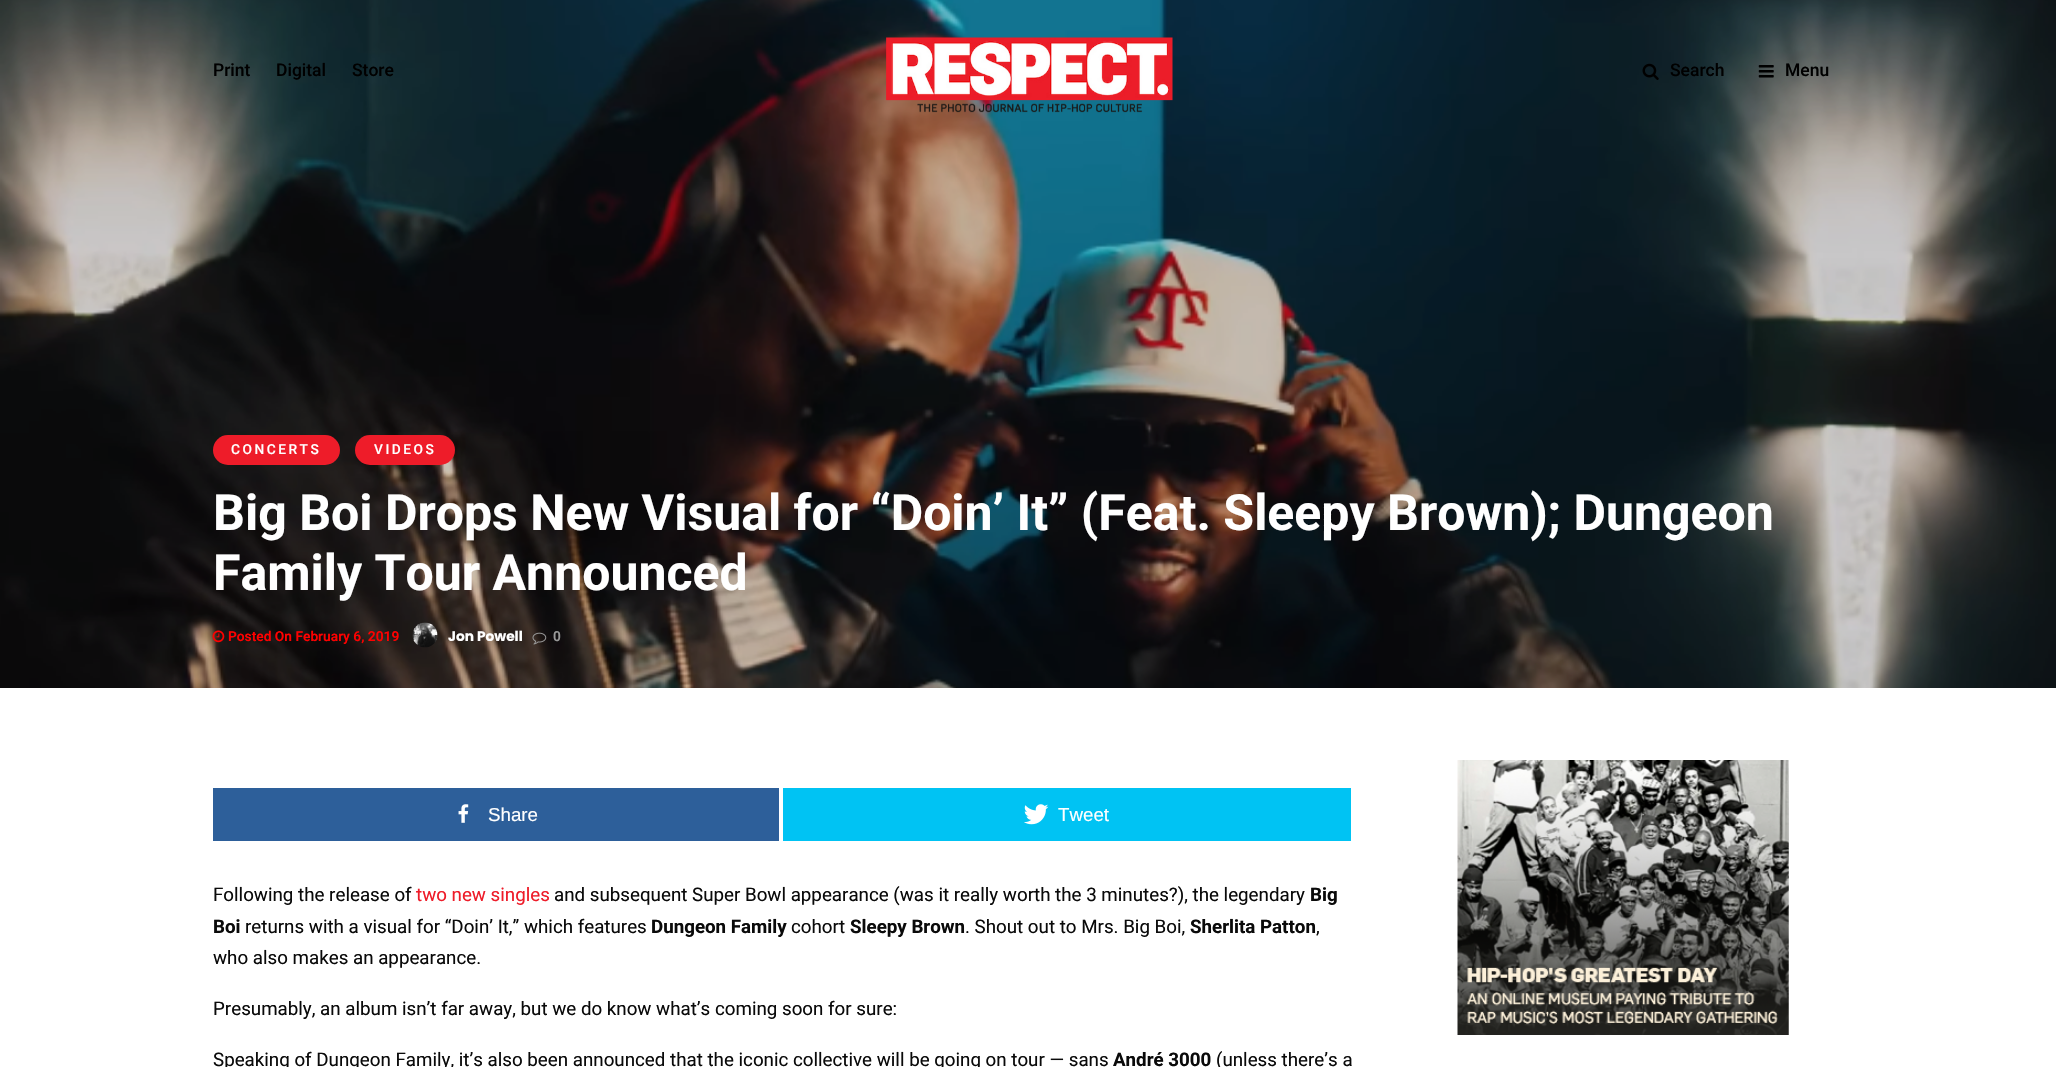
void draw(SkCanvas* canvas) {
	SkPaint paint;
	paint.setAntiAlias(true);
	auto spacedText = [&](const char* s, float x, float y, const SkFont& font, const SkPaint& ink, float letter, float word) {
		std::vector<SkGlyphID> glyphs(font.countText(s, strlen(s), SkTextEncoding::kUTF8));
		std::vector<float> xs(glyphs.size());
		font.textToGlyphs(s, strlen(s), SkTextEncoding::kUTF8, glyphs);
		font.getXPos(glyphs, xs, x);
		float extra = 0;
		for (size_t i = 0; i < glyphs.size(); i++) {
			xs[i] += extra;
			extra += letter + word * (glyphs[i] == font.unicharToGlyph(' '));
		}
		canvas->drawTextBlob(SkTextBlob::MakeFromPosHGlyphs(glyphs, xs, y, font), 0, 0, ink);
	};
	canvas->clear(0xffffffff);
	canvas->drawImageRect(SkImages::DeferredFromEncodedData(SkData::MakeFromFileName("img4.png")), SkRect::MakeXYWH(0, 0, 2056, 688), SkSamplingOptions());
	canvas->drawImageRect(SkImages::DeferredFromEncodedData(SkData::MakeFromFileName("img1.png")), SkRect::MakeXYWH(886, 37, 287, 76), SkSamplingOptions());
	SkFont f1(fontMgr->matchFamilyStyle("Roboto", SkFontStyle(500, SkFontStyle::kNormal_Width, SkFontStyle::kUpright_Slant)), 17.5);
	f1.setSubpixel(true);
	paint.setColor(0xff000000);
	canvas->drawString("Print", 213, 76, f1, paint);
	canvas->drawString("Digital", 276, 76, f1, paint);
	canvas->drawString("Store", 352, 76, f1, paint);
	canvas->drawImageRect(SkImages::DeferredFromEncodedData(SkData::MakeFromFileName("img2.png")), SkRect::MakeXYWH(1642, 63, 17, 17), SkSamplingOptions());
	canvas->drawString("Search", 1670, 76, f1, paint);
	canvas->drawImageRect(SkImages::DeferredFromEncodedData(SkData::MakeFromFileName("img3.png")), SkRect::MakeXYWH(1758, 65, 16, 13), SkSamplingOptions());
	canvas->drawString("Menu", 1785, 76, f1, paint);
	paint.setColor(0xffee1c29);
	canvas->drawRoundRect(SkRect::MakeXYWH(213, 435, 127, 30), 15, 15, paint);
	SkFont f2(fontMgr->matchFamilyStyle("Roboto", SkFontStyle(500, SkFontStyle::kNormal_Width, SkFontStyle::kUpright_Slant)), 13.75);
	f2.setSubpixel(true);
	paint.setColor(0xffffffff);
	spacedText("CONCERTS", 231, 454, f2, paint, 2.5, 0);
	paint.setColor(0xffee1c29);
	canvas->drawRoundRect(SkRect::MakeXYWH(355, 435, 100, 30), 15, 15, paint);
	paint.setColor(0xffffffff);
	spacedText("VIDEOS", 374, 454, f2, paint, 2.5, 0);
	SkFont f3(fontMgr->matchFamilyStyle("Roboto", SkFontStyle::Bold()), 50);
	f3.setSubpixel(true);
	canvas->drawString("Big Boi Drops New Visual for “Doin’ It” (Feat. Sleepy Brown); Dungeon", 213, 530, f3, paint);
	canvas->drawString("Family Tour Announced", 213, 590, f3, paint);
	canvas->drawImageRect(SkImages::DeferredFromEncodedData(SkData::MakeFromFileName("img5.png")), SkRect::MakeXYWH(212, 630, 13, 13), SkSamplingOptions());
	SkFont f4(fontMgr->matchFamilyStyle("Roboto", SkFontStyle(600, SkFontStyle::kNormal_Width, SkFontStyle::kUpright_Slant)), 13.75);
	f4.setSubpixel(true);
	paint.setColor(0xffff0000);
	canvas->drawString("Posted On February 6, 2019", 228, 641, f4, paint);
	canvas->drawImageRect(SkImages::DeferredFromEncodedData(SkData::MakeFromFileName("img6.png")), SkRect::MakeXYWH(412, 622, 26, 26), SkSamplingOptions());
	SkFont f5(fontMgr->matchFamilyStyle("Poppins", SkFontStyle::Bold()), 13.75);
	f5.setSubpixel(true);
	paint.setColor(0xffffffff);
	canvas->drawString("Jon Powell", 448, 641, f5, paint);
	canvas->drawImageRect(SkImages::DeferredFromEncodedData(SkData::MakeFromFileName("img7.png")), SkRect::MakeXYWH(532, 632, 15, 13), SkSamplingOptions());
	paint.setColor(0xff999999);
	canvas->drawString("0", 553, 641, f4, paint);
	paint.setColor(0xff2d5f9a);
	canvas->drawRect(SkRect::MakeXYWH(213, 788, 566, 53), paint);
	canvas->drawImageRect(SkImages::DeferredFromEncodedData(SkData::MakeFromFileName("img8.png")), SkRect::MakeXYWH(458, 804, 11, 19), SkSamplingOptions());
	SkFont f6(fontMgr->matchFamilyStyle("Liberation Sans", SkFontStyle::Normal()), 18.75);
	f6.setSubpixel(true);
	paint.setColor(0xffffffff);
	canvas->drawString("Share", 488, 821, f6, paint);
	paint.setColor(0xff00c3f3);
	canvas->drawRect(SkRect::MakeXYWH(783, 788, 568, 53), paint);
	canvas->drawImageRect(SkImages::DeferredFromEncodedData(SkData::MakeFromFileName("img9.png")), SkRect::MakeXYWH(1024, 804, 25, 21), SkSamplingOptions());
	paint.setColor(0xffffffff);
	canvas->drawString("Tweet", 1058, 821, f6, paint);
	SkFont f7(fontMgr->matchFamilyStyle("Roboto", SkFontStyle::Normal()), 18.75);
	f7.setSubpixel(true);
	paint.setColor(0xff0a0a0a);
	canvas->drawString("Following the release of", 213, 901, f7, paint);
	paint.setColor(0xffee1c29);
	canvas->drawString("two new singles", 416, 901, f7, paint);
	paint.setColor(0xff0a0a0a);
	canvas->drawString("and subsequent Super Bowl appearance (was it really worth the 3 minutes?), the legendary", 554, 901, f7, paint);
	SkFont f8(fontMgr->matchFamilyStyle("Roboto", SkFontStyle::Bold()), 18.75);
	f8.setSubpixel(true);
	canvas->drawString("Big", 1310, 901, f8, paint);
	canvas->drawString("Boi", 213, 933, f8, paint);
	canvas->drawString("returns with a visual for “Doin’ It,” which features", 245, 933, f7, paint);
	canvas->drawString("Dungeon Family", 651, 933, f8, paint);
	canvas->drawString("cohort", 791, 933, f7, paint);
	canvas->drawString("Sleepy Brown", 850, 933, f8, paint);
	canvas->drawString(". Shout out to Mrs. Big Boi,", 965, 933, f7, paint);
	canvas->drawString("Sherlita Patton", 1190, 933, f8, paint);
	canvas->drawString(",", 1316, 933, f7, paint);
	canvas->drawString("who also makes an appearance.", 213, 964, f7, paint);
	canvas->drawString("Presumably, an album isn’t far away, but we do know what’s coming soon for sure:", 213, 1015, f7, paint);
	canvas->drawString("Speaking of Dungeon Family, it’s also been announced that the iconic collective will be going on tour — sans", 213, 1066, f7, paint);
	canvas->drawString("André 3000", 1113, 1066, f8, paint);
	canvas->drawString("(unless there’s a", 1216, 1066, f7, paint);
	canvas->drawImageRect(SkImages::DeferredFromEncodedData(SkData::MakeFromFileName("img10.png")), SkRect::MakeXYWH(1457, 760, 332, 275), SkSamplingOptions());
}
